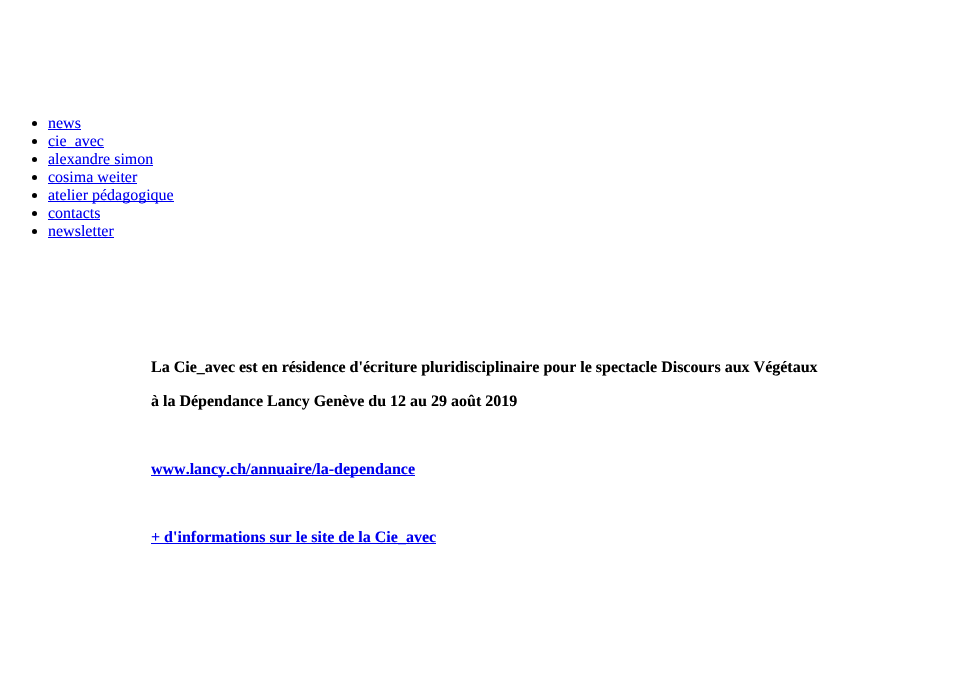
void draw(SkCanvas* canvas) {
	SkPaint paint;
	paint.setAntiAlias(true);
	canvas->clear(0xffffffff);
	paint.setColor(0xff000000);
	canvas->drawCircle(34.5, 123.5, 2.5, paint);
	SkFont f1(fontMgr->matchFamilyStyle("Liberation Serif", SkFontStyle::Normal()), 16);
	f1.setSubpixel(true);
	paint.setColor(0xff0000ee);
	canvas->drawString("news", 48, 128, f1, paint);
	canvas->drawRect(SkRect::MakeXYWH(48, 129, 33, 1), paint);
	paint.setColor(0xff000000);
	canvas->drawCircle(34.5, 141.5, 2.5, paint);
	paint.setColor(0xff0000ee);
	canvas->drawRect(SkRect::MakeXYWH(48, 147, 56, 1), paint);
	canvas->drawString("cie_avec", 48, 146, f1, paint);
	paint.setColor(0xff000000);
	canvas->drawCircle(34.5, 159.5, 2.5, paint);
	paint.setColor(0xff0000ee);
	canvas->drawString("alexandre simon", 48, 164, f1, paint);
	canvas->drawRect(SkRect::MakeXYWH(48, 165, 105, 1), paint);
	paint.setColor(0xff000000);
	canvas->drawCircle(34.5, 177.5, 2.5, paint);
	paint.setColor(0xff0000ee);
	canvas->drawString("cosima weiter", 48, 182, f1, paint);
	canvas->drawRect(SkRect::MakeXYWH(48, 183, 89, 1), paint);
	paint.setColor(0xff000000);
	canvas->drawCircle(34.5, 195.5, 2.5, paint);
	paint.setColor(0xff0000ee);
	canvas->drawRect(SkRect::MakeXYWH(48, 201, 126, 1), paint);
	canvas->drawString("atelier pédagogique", 48, 200, f1, paint);
	paint.setColor(0xff000000);
	canvas->drawCircle(34.5, 213.5, 2.5, paint);
	paint.setColor(0xff0000ee);
	canvas->drawString("contacts", 48, 218, f1, paint);
	canvas->drawRect(SkRect::MakeXYWH(48, 219, 52, 1), paint);
	paint.setColor(0xff000000);
	canvas->drawCircle(34.5, 231.5, 2.5, paint);
	paint.setColor(0xff0000ee);
	canvas->drawString("newsletter", 48, 236, f1, paint);
	canvas->drawRect(SkRect::MakeXYWH(48, 237, 66, 1), paint);
	SkFont f2(fontMgr->matchFamilyStyle("Liberation Serif", SkFontStyle::Bold()), 16);
	f2.setSubpixel(true);
	paint.setColor(0xff000000);
	canvas->drawString("La Cie_avec est en résidence d'écriture pluridisciplinaire pour le spectacle Discours aux Végétaux", 151, 372, f2, paint);
	canvas->drawString("à la Dépendance Lancy Genève du 12 au 29 août 2019", 151, 406, f2, paint);
	paint.setColor(0xff0000ee);
	canvas->drawRect(SkRect::MakeXYWH(151, 475, 264, 1), paint);
	canvas->drawString("www.lancy.ch/annuaire/la-dependance", 151, 474, f2, paint);
	canvas->drawRect(SkRect::MakeXYWH(151, 543, 285, 1), paint);
	canvas->drawString("+ d'informations sur le site de la Cie_avec", 151, 542, f2, paint);
}
